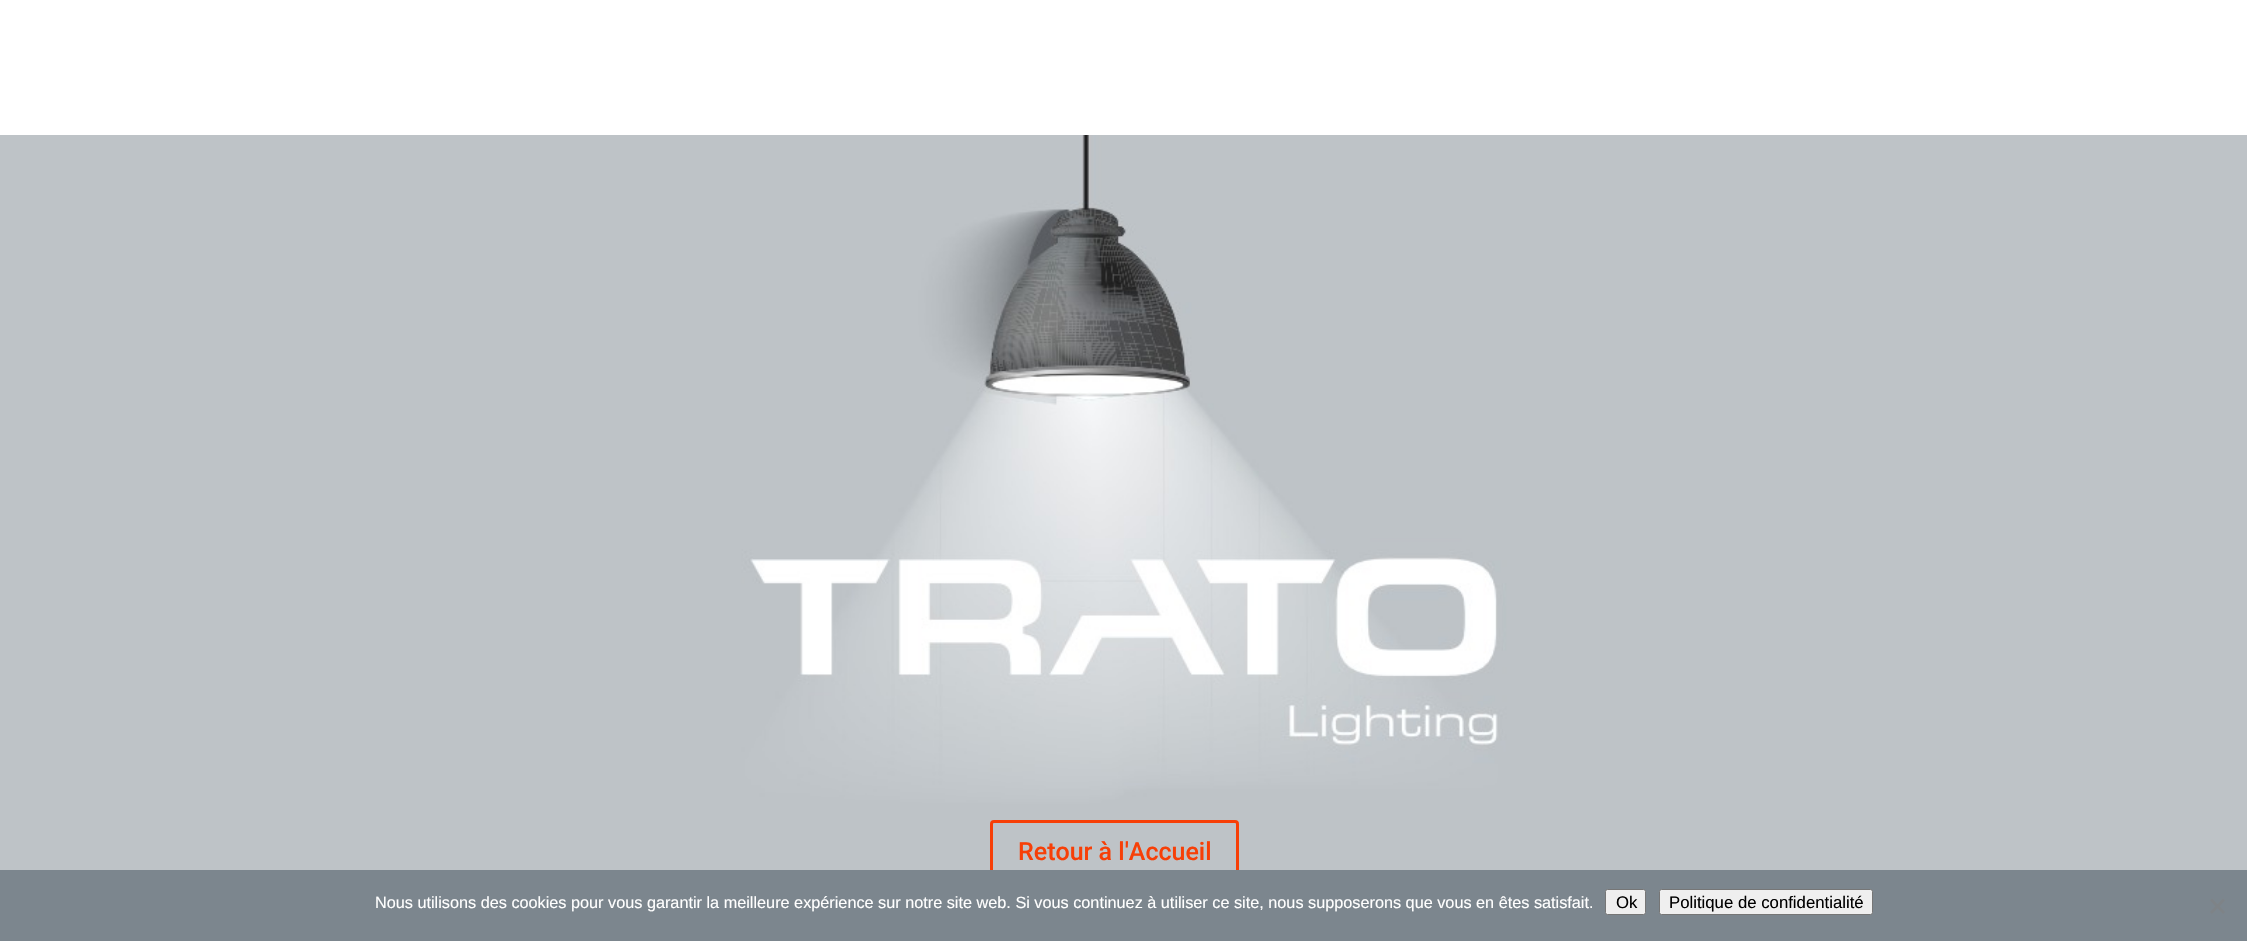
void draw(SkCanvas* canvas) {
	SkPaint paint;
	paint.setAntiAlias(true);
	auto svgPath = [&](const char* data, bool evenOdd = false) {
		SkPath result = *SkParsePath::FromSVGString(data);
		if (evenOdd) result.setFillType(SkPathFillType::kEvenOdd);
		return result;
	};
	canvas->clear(0xffffffff);
	canvas->drawImageRect(SkImages::DeferredFromEncodedData(SkData::MakeFromFileName("img1.png")), SkRect::MakeXYWH(0, 135, 2247, 735), SkSamplingOptions());
	paint.setStroke(true);
	paint.setStrokeWidth(3);
	paint.setColor(0xfff73f07);
	canvas->drawRoundRect(SkRect::MakeXYWH(991.5, 821.5, 246, 60), 2.5, 2.5, paint);
	SkFont f1(fontMgr->matchFamilyStyle("Roboto", SkFontStyle(500, SkFontStyle::kNormal_Width, SkFontStyle::kUpright_Slant)), 25);
	f1.setSubpixel(true);
	paint.setStroke(false);
	canvas->drawString("Retour à l'Accueil", 1018, 860, f1, paint);
	paint.setColor(0xff7c868e);
	canvas->drawRect(SkRect::MakeXYWH(0, 870, 2247, 71), paint);
	SkFont f2(fontMgr->matchFamilyStyle("Liberation Sans", SkFontStyle::Normal()), 16.25);
	f2.setSubpixel(true);
	paint.setColor(0xffffffff);
	canvas->drawString("Nous utilisons des cookies pour vous garantir la meilleure expérience sur notre site web. Si vous continuez à utiliser ce site, nous supposerons que vous en êtes satisfait.", 375, 908, f2, paint);
	paint.setColor(0xffefefef);
	canvas->drawRoundRect(SkRect::MakeXYWH(1605.5, 889.5, 40, 25), 2, 2, paint);
	paint.setStroke(true);
	paint.setStrokeWidth(1);
	paint.setColor(0xff767676);
	canvas->drawRoundRect(SkRect::MakeXYWH(1605.5, 889.5, 40, 25), 2, 2, paint);
	SkFont f3(fontMgr->matchFamilyStyle("Liberation Sans", SkFontStyle::Normal()), 16.75);
	f3.setSubpixel(true);
	paint.setStroke(false);
	paint.setColor(0xff000000);
	canvas->drawString("Ok", 1616, 908, f3, paint);
	paint.setColor(0xffefefef);
	canvas->drawRoundRect(SkRect::MakeXYWH(1659.5, 889.5, 213, 25), 2, 2, paint);
	paint.setStroke(true);
	paint.setColor(0xff767676);
	canvas->drawRoundRect(SkRect::MakeXYWH(1659.5, 889.5, 213, 25), 2, 2, paint);
	paint.setStroke(false);
	paint.setColor(0xff000000);
	canvas->drawString("Politique de confidentialité", 1669, 908, f3, paint);
	paint.setColor(0xff7e8387);
	canvas->drawPath(svgPath("M2223 898.5L2225 900.5L2212 914L2210 912Z"), paint);
	canvas->drawPath(svgPath("M2210 900.5L2212 898.5L2225 912L2223 914Z"), paint);
}
